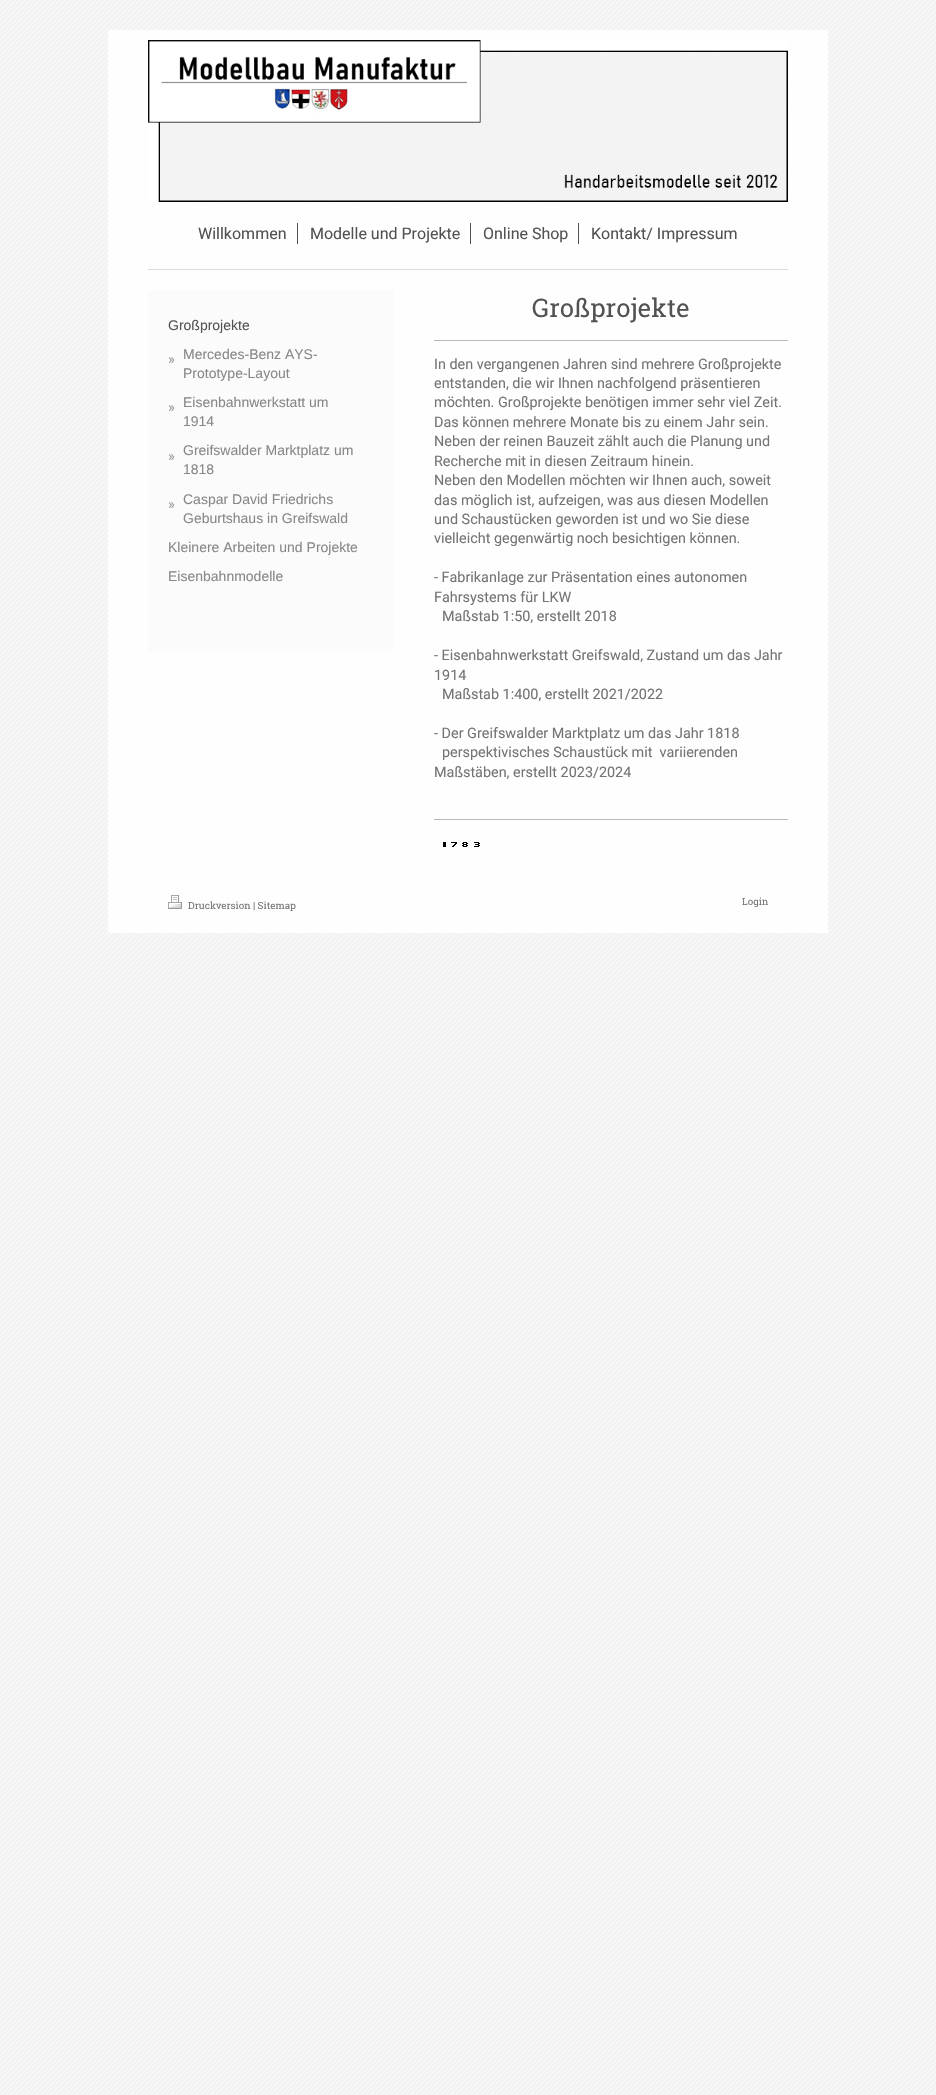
void draw(SkCanvas* canvas) {
	SkPaint paint;
	paint.setAntiAlias(true);
	canvas->clear(0xfff3f1f1);
	canvas->drawImageRect(SkImages::DeferredFromEncodedData(SkData::MakeFromFileName("img1.png")), SkRect::MakeXYWH(0, 0, 936, 2095), SkSamplingOptions());
	paint.setColor(0xfffefefe);
	canvas->drawRect(SkRect::MakeXYWH(108, 30, 720, 903), paint);
	canvas->drawImageRect(SkImages::DeferredFromEncodedData(SkData::MakeFromFileName("img2.png")), SkRect::MakeXYWH(148, 40, 640, 162), SkSamplingOptions());
	paint.setColor(0xffdcdcdc);
	canvas->drawRect(SkRect::MakeXYWH(148, 269, 640, 1), paint);
	paint.setColor(0xff525252);
	canvas->drawRect(SkRect::MakeXYWH(297, 223, 1, 21), paint);
	SkFont f1(fontMgr->matchFamilyStyle("Roboto", SkFontStyle::Normal()), 16);
	f1.setSubpixel(true);
	canvas->drawString("Willkommen", 198, 239, f1, paint);
	canvas->drawRect(SkRect::MakeXYWH(470, 223, 1, 21), paint);
	canvas->drawString("Modelle und Projekte", 310, 239, f1, paint);
	canvas->drawRect(SkRect::MakeXYWH(578, 223, 1, 21), paint);
	canvas->drawString("Online Shop", 483, 239, f1, paint);
	canvas->drawString("Kontakt/ Impressum", 591, 239, f1, paint);
	paint.setColor(0xfffbfbfb);
	canvas->drawRect(SkRect::MakeXYWH(148, 290, 246, 361), paint);
	SkFont f2(fontMgr->matchFamilyStyle("Liberation Sans", SkFontStyle::Normal()), 14);
	f2.setSubpixel(true);
	paint.setColor(0xff525252);
	canvas->drawString("Großprojekte", 168, 330, f2, paint);
	SkFont f3(fontMgr->matchFamilyStyle("Roboto Slab", SkFontStyle::Normal()), 14.4);
	f3.setSubpixel(true);
	paint.setColor(0xff9f9f9f);
	canvas->drawString("»", 168, 364, f3, paint);
	paint.setColor(0xff888888);
	canvas->drawString("Mercedes-Benz AYS-", 183, 359, f2, paint);
	canvas->drawString("Prototype-Layout", 183, 378, f2, paint);
	paint.setColor(0xff9f9f9f);
	canvas->drawString("»", 168, 412, f3, paint);
	paint.setColor(0xff888888);
	canvas->drawString("Eisenbahnwerkstatt um", 183, 407, f2, paint);
	canvas->drawString("1914", 183, 426, f2, paint);
	paint.setColor(0xff9f9f9f);
	canvas->drawString("»", 168, 461, f3, paint);
	paint.setColor(0xff888888);
	canvas->drawString("Greifswalder Marktplatz um", 183, 455, f2, paint);
	canvas->drawString("1818", 183, 474, f2, paint);
	paint.setColor(0xff9f9f9f);
	canvas->drawString("»", 168, 509, f3, paint);
	paint.setColor(0xff888888);
	canvas->drawString("Caspar David Friedrichs", 183, 504, f2, paint);
	canvas->drawString("Geburtshaus in Greifswald", 183, 523, f2, paint);
	canvas->drawString("Kleinere Arbeiten und Projekte", 168, 552, f2, paint);
	canvas->drawString("Eisenbahnmodelle", 168, 581, f2, paint);
	SkFont f4(fontMgr->matchFamilyStyle("Roboto Slab", SkFontStyle::Normal()), 25.5);
	f4.setSubpixel(true);
	paint.setColor(0xff525252);
	canvas->drawString("Großprojekte", 532, 317, f4, paint);
	paint.setColor(0xffb9b9b9);
	canvas->drawRect(SkRect::MakeXYWH(434, 340, 354, 1), paint);
	SkFont f5(fontMgr->matchFamilyStyle("Roboto", SkFontStyle::Normal()), 14.4);
	f5.setSubpixel(true);
	paint.setColor(0xff747474);
	canvas->drawString("In den vergangenen Jahren sind mehrere Großprojekte", 434, 369, f5, paint);
	canvas->drawString("entstanden, die wir Ihnen nachfolgend präsentieren", 434, 388, f5, paint);
	canvas->drawString("möchten. Großprojekte benötigen immer sehr viel Zeit.", 434, 407, f5, paint);
	canvas->drawString("Das können mehrere Monate bis zu einem Jahr sein.", 434, 427, f5, paint);
	canvas->drawString("Neben der reinen Bauzeit zählt auch die Planung und", 434, 446, f5, paint);
	canvas->drawString("Recherche mit in diesen Zeitraum hinein.", 434, 466, f5, paint);
	canvas->drawString("Neben den Modellen möchten wir Ihnen auch, soweit", 434, 485, f5, paint);
	canvas->drawString("das möglich ist, aufzeigen, was aus diesen Modellen", 434, 505, f5, paint);
	canvas->drawString("und Schaustücken geworden ist und wo Sie diese", 434, 524, f5, paint);
	canvas->drawString("vielleicht gegenwärtig noch besichtigen können.", 434, 543, f5, paint);
	canvas->drawString("- Fabrikanlage zur Präsentation eines autonomen", 434, 582, f5, paint);
	canvas->drawString("Fahrsystems für LKW", 434, 602, f5, paint);
	canvas->drawString("Maßstab 1:50, erstellt 2018", 442, 621, f5, paint);
	canvas->drawString("- Eisenbahnwerkstatt Greifswald, Zustand um das Jahr", 434, 660, f5, paint);
	canvas->drawString("1914", 434, 680, f5, paint);
	canvas->drawString("Maßstab 1:400, erstellt 2021/2022", 442, 699, f5, paint);
	canvas->drawString("- Der Greifswalder Marktplatz um das Jahr 1818", 434, 738, f5, paint);
	canvas->drawString("perspektivisches Schaustück mit  variierenden", 442, 757, f5, paint);
	canvas->drawString("Maßstäben, erstellt 2023/2024", 434, 777, f5, paint);
	paint.setColor(0xffb9b9b9);
	canvas->drawRect(SkRect::MakeXYWH(434, 819, 354, 1), paint);
	paint.setColor(0xff000000);
	canvas->drawRect(SkRect::MakeXYWH(443, 842, 3, 5), paint);
	canvas->drawImageRect(SkImages::DeferredFromEncodedData(SkData::MakeFromFileName("img3.png")), SkRect::MakeXYWH(451, 842, 6, 5), SkSamplingOptions());
	canvas->drawImageRect(SkImages::DeferredFromEncodedData(SkData::MakeFromFileName("img4.png")), SkRect::MakeXYWH(462, 842, 6, 5), SkSamplingOptions());
	canvas->drawImageRect(SkImages::DeferredFromEncodedData(SkData::MakeFromFileName("img5.png")), SkRect::MakeXYWH(474, 842, 6, 5), SkSamplingOptions());
	canvas->drawImageRect(SkImages::DeferredFromEncodedData(SkData::MakeFromFileName("img6.png")), SkRect::MakeXYWH(168, 895, 14, 14), SkSamplingOptions());
	SkFont f6(fontMgr->matchFamilyStyle("Roboto Slab", SkFontStyle::Normal()), 9.75);
	f6.setSubpixel(true);
	paint.setColor(0xff747474);
	canvas->drawString("Druckversion | Sitemap", 188, 909, f6, paint);
	canvas->drawString("Login", 742, 905, f6, paint);
}
